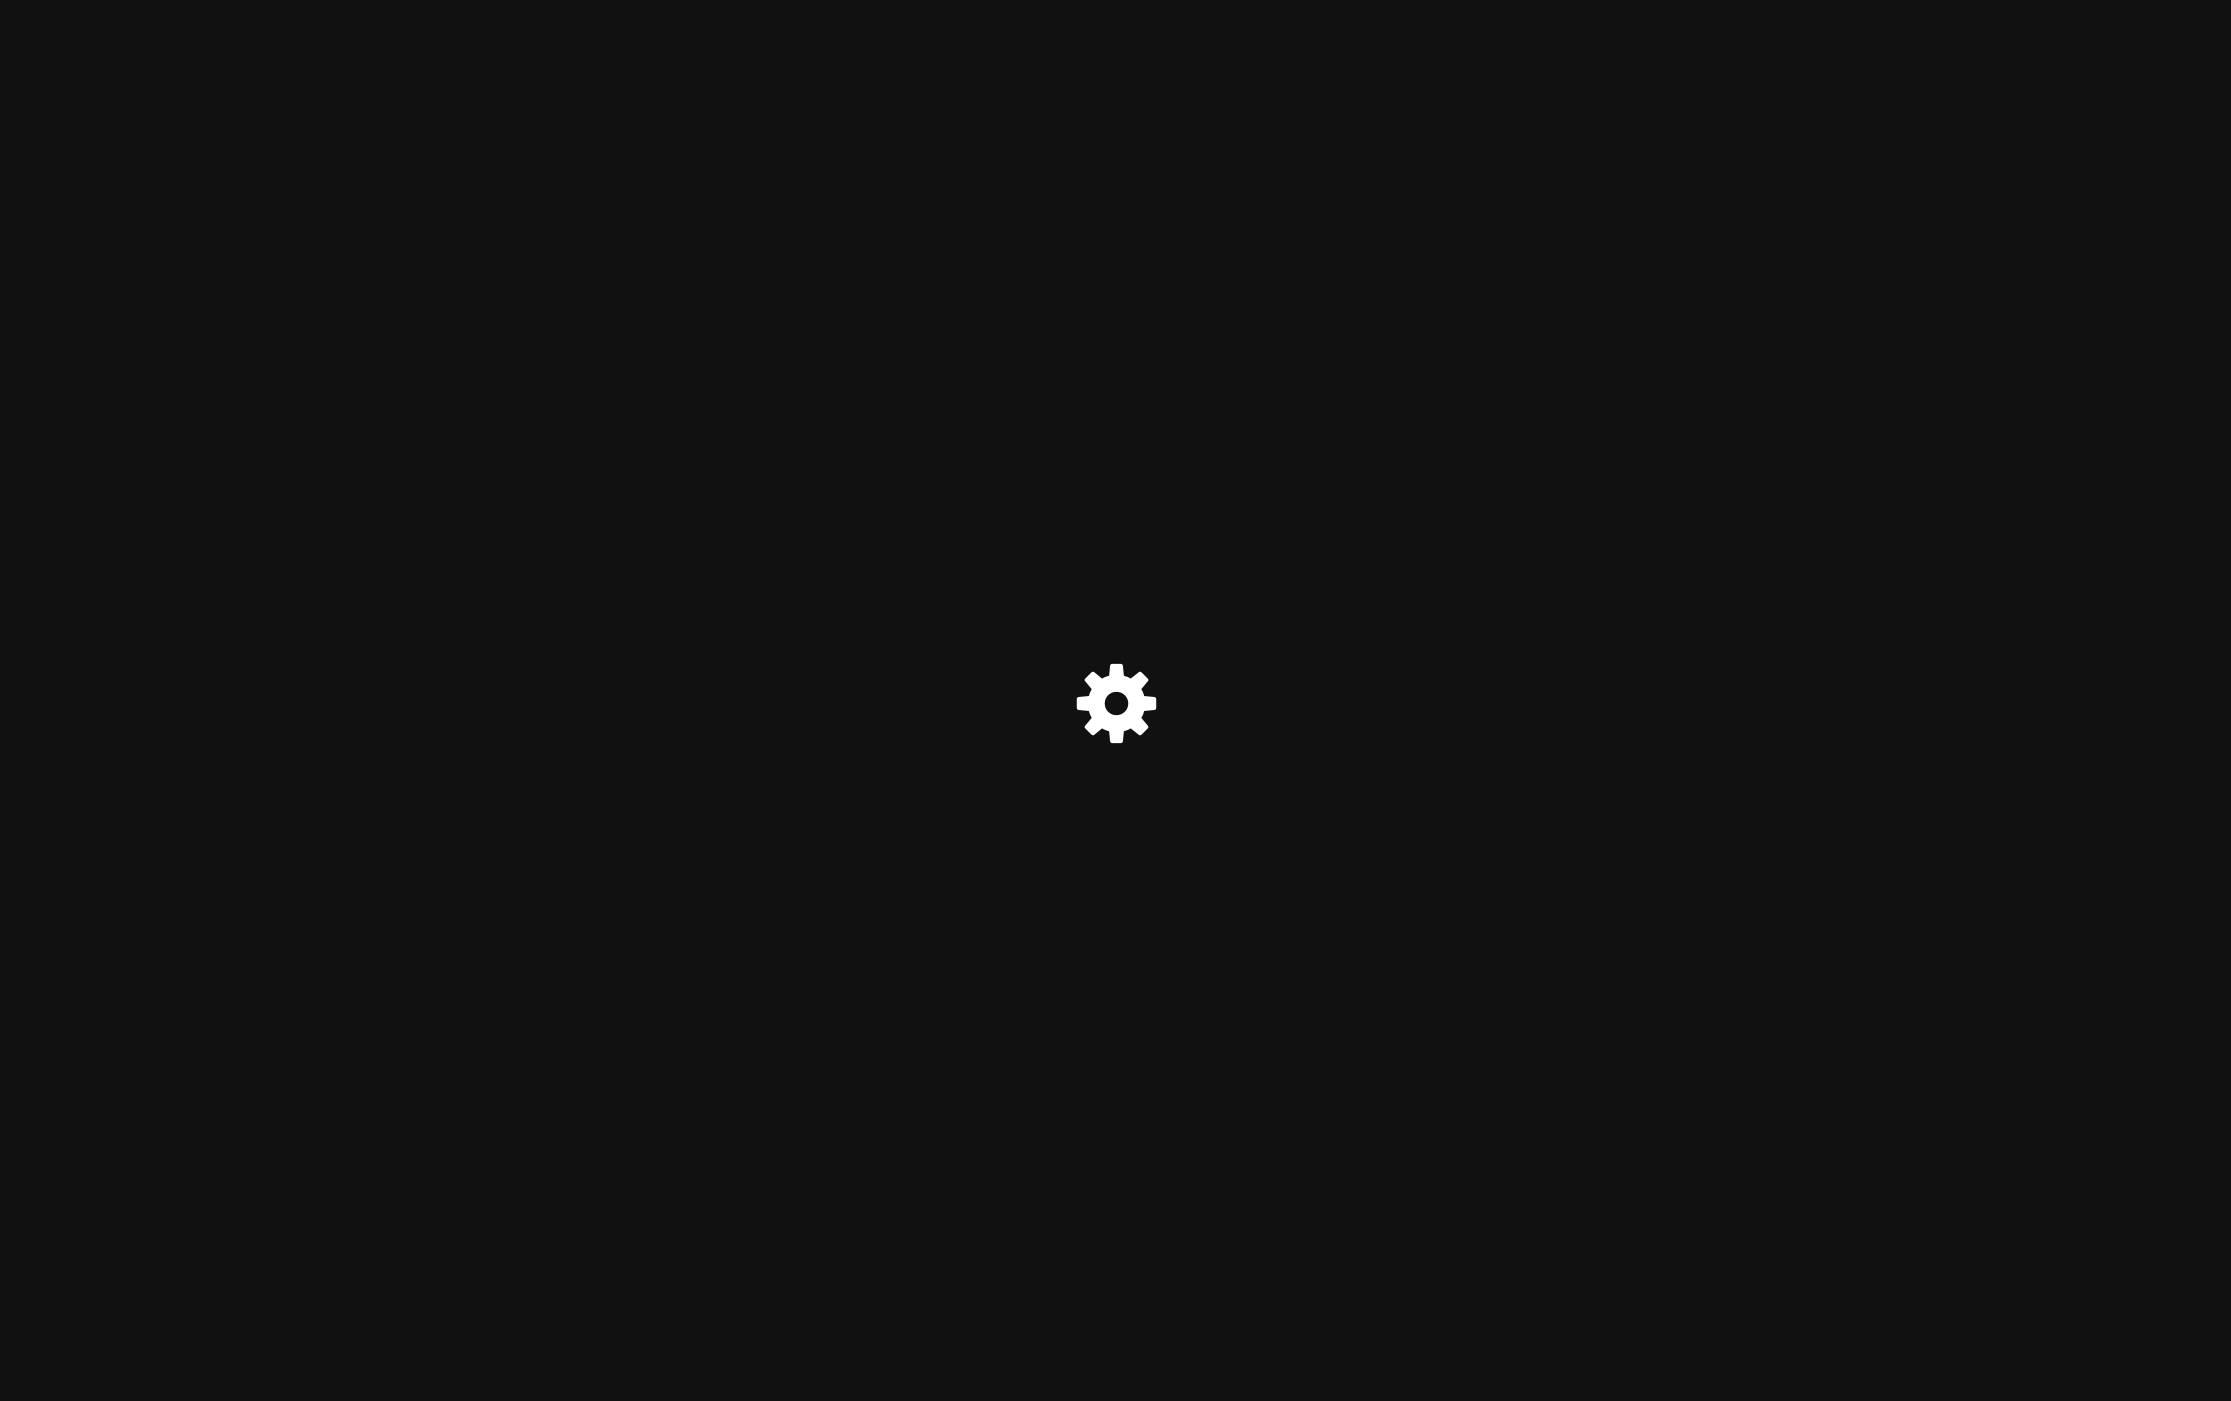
void draw(SkCanvas* canvas) {
	SkPaint paint;
	paint.setAntiAlias(true);
	canvas->clear(0xff111111);
	canvas->drawImageRect(SkImages::DeferredFromEncodedData(SkData::MakeFromFileName("img1.png")), SkRect::MakeXYWH(1076, 663, 81, 81), SkSamplingOptions());
}
